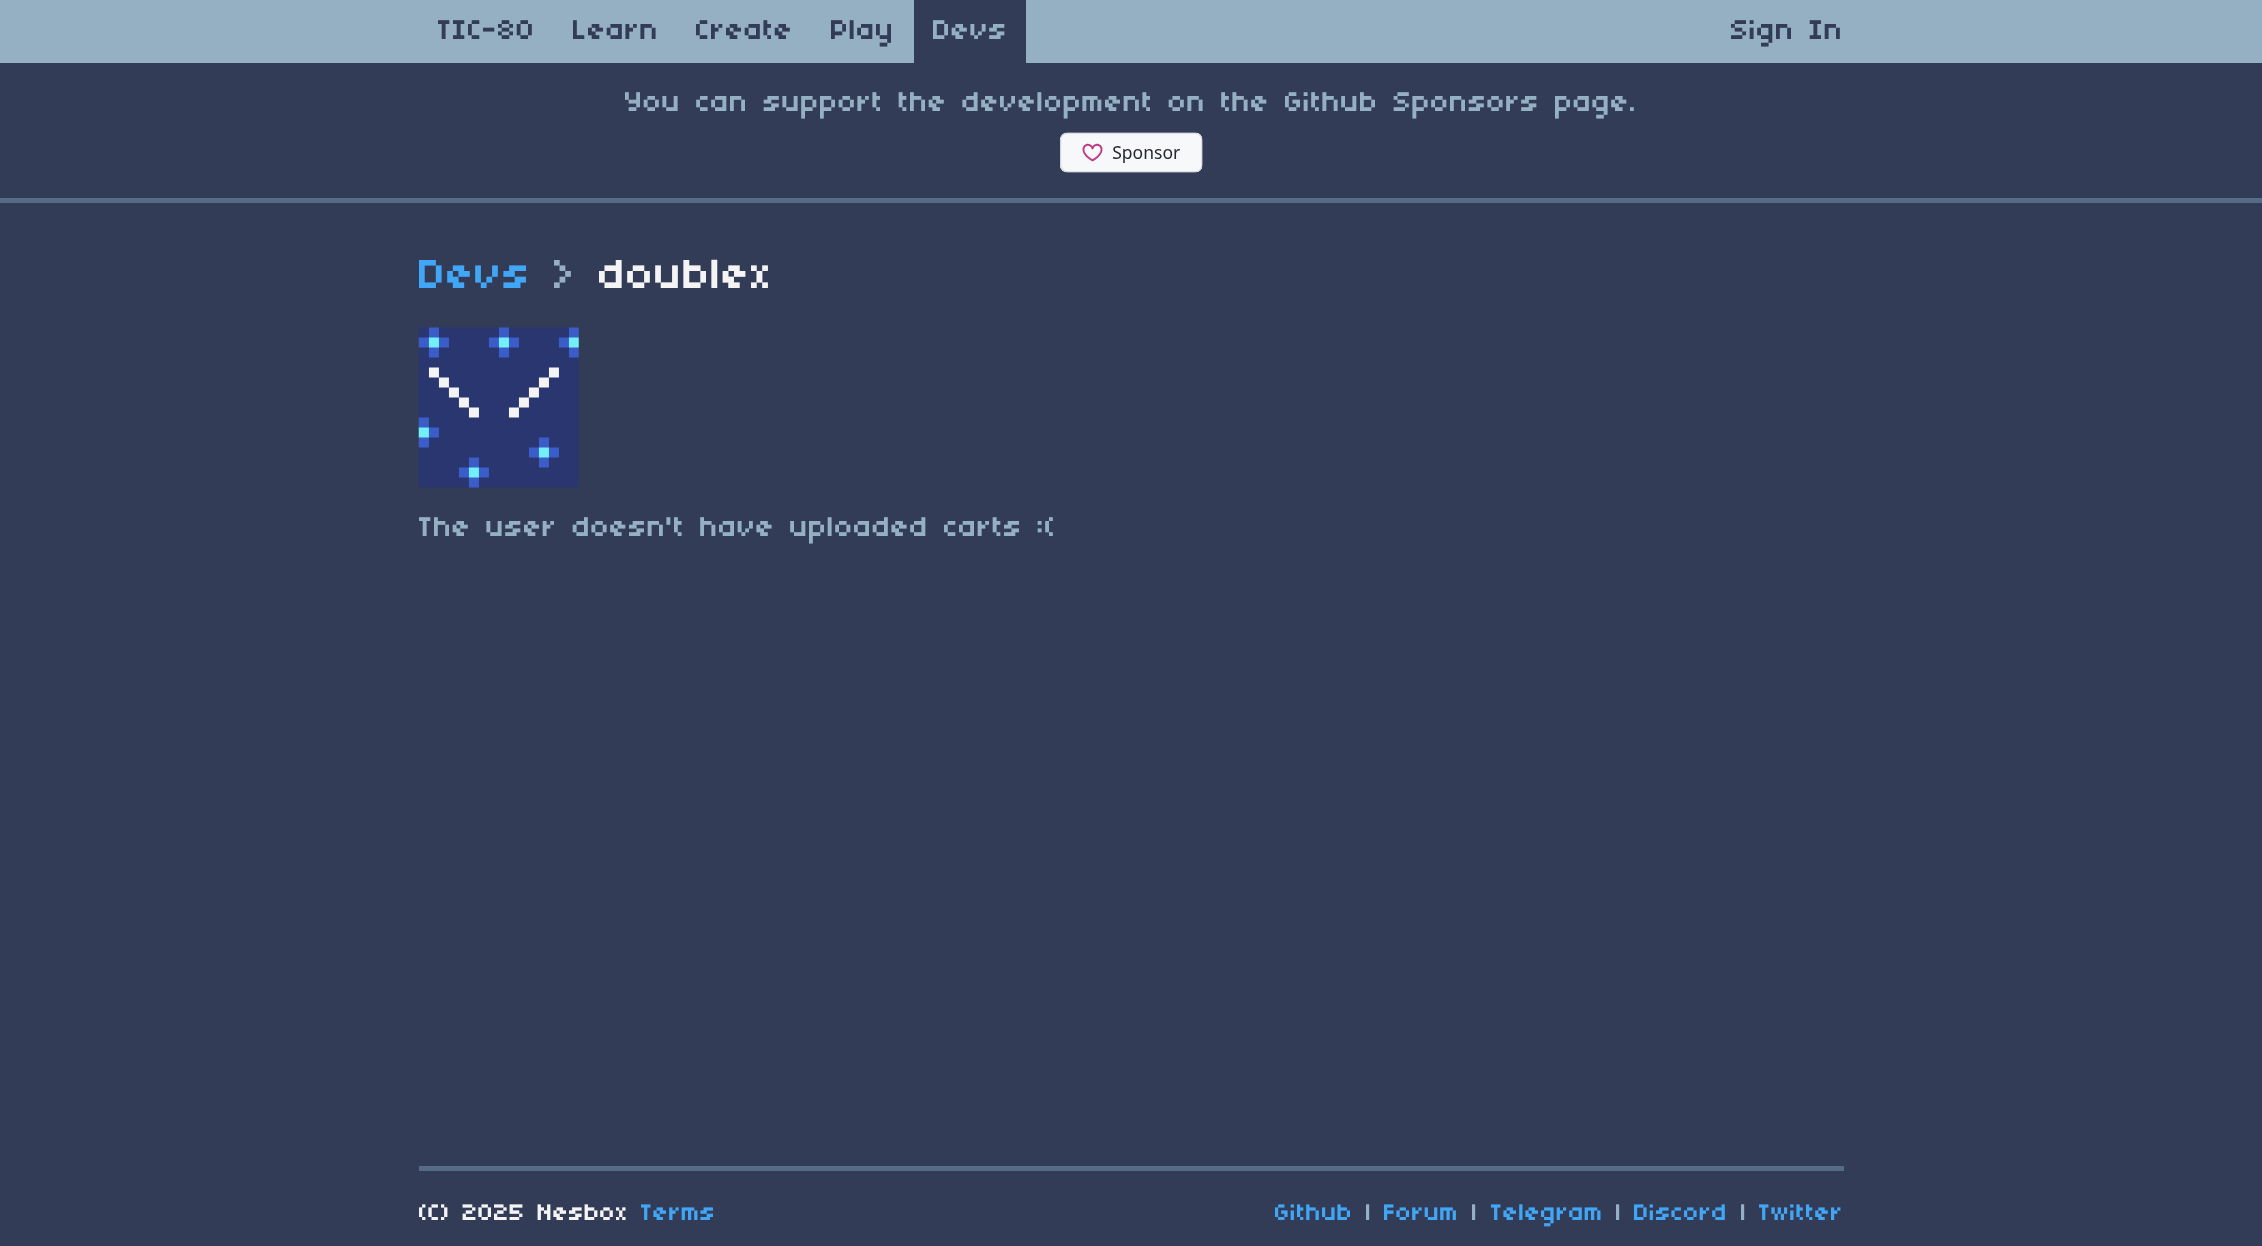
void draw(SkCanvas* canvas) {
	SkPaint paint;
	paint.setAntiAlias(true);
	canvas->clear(0xff333c57);
	paint.setColor(0xff94b0c2);
	canvas->drawRect(SkRect::MakeXYWH(0, 0, 2262, 63), paint);
	SkFont f1(fontMgr->matchFamilyStyle("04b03", SkFontStyle::Normal()), 30);
	f1.setSubpixel(true);
	paint.setColor(0xff333c57);
	canvas->drawString("TIC-80", 438, 39, f1, paint);
	canvas->drawString("Learn", 573, 39, f1, paint);
	canvas->drawString("Create", 696, 39, f1, paint);
	canvas->drawString("Play", 831, 39, f1, paint);
	canvas->drawRect(SkRect::MakeXYWH(914, 0, 112, 63), paint);
	paint.setColor(0xff94b0c2);
	canvas->drawString("Devs", 933, 39, f1, paint);
	paint.setColor(0xff333c57);
	canvas->drawString("Sign In", 1731, 39, f1, paint);
	paint.setColor(0xff94b0c2);
	canvas->drawString("You can support the development on the Github Sponsors page.", 625, 111, f1, paint);
	canvas->drawImageRect(SkImages::DeferredFromEncodedData(SkData::MakeFromFileName("img1.png")), SkRect::MakeXYWH(1060, 132, 143, 41), SkSamplingOptions());
	paint.setColor(0xff566c86);
	canvas->drawRect(SkRect::MakeXYWH(0, 198, 2262, 5), paint);
	SkFont f2(fontMgr->matchFamilyStyle("04b03", SkFontStyle::Normal()), 45);
	f2.setSubpixel(true);
	paint.setColor(0xff41a6f6);
	canvas->drawString("Devs", 419, 288, f2, paint);
	paint.setColor(0xff94b0c2);
	canvas->drawString(">", 554, 288, f2, paint);
	paint.setColor(0xfff4f4f4);
	canvas->drawString("doublex", 599, 288, f2, paint);
	canvas->drawImageRect(SkImages::DeferredFromEncodedData(SkData::MakeFromFileName("img2.png")), SkRect::MakeXYWH(418, 327, 161, 161), SkSamplingOptions());
	paint.setColor(0xff94b0c2);
	canvas->drawString("The user doesn't have uploaded carts :(", 419, 536, f1, paint);
	paint.setColor(0xff566c86);
	canvas->drawRect(SkRect::MakeXYWH(419, 1166, 1425, 5), paint);
	SkFont f3(fontMgr->matchFamilyStyle("04b03", SkFontStyle::Normal()), 25);
	f3.setSubpixel(true);
	paint.setColor(0xfff4f4f4);
	canvas->drawString("(C) 2025 Nesbox", 419, 1220, f3, paint);
	paint.setColor(0xff41a6f6);
	canvas->drawString("Terms", 641, 1220, f3, paint);
	canvas->drawString("Github", 1275, 1220, f3, paint);
	paint.setColor(0xff94b0c2);
	canvas->drawString("|", 1366, 1220, f3, paint);
	paint.setColor(0xff41a6f6);
	canvas->drawString("Forum", 1384, 1220, f3, paint);
	paint.setColor(0xff94b0c2);
	canvas->drawString("|", 1472, 1220, f3, paint);
	paint.setColor(0xff41a6f6);
	canvas->drawString("Telegram", 1491, 1220, f3, paint);
	paint.setColor(0xff94b0c2);
	canvas->drawString("|", 1616, 1220, f3, paint);
	paint.setColor(0xff41a6f6);
	canvas->drawString("Discord", 1634, 1220, f3, paint);
	paint.setColor(0xff94b0c2);
	canvas->drawString("|", 1741, 1220, f3, paint);
	paint.setColor(0xff41a6f6);
	canvas->drawString("Twitter", 1759, 1220, f3, paint);
}
